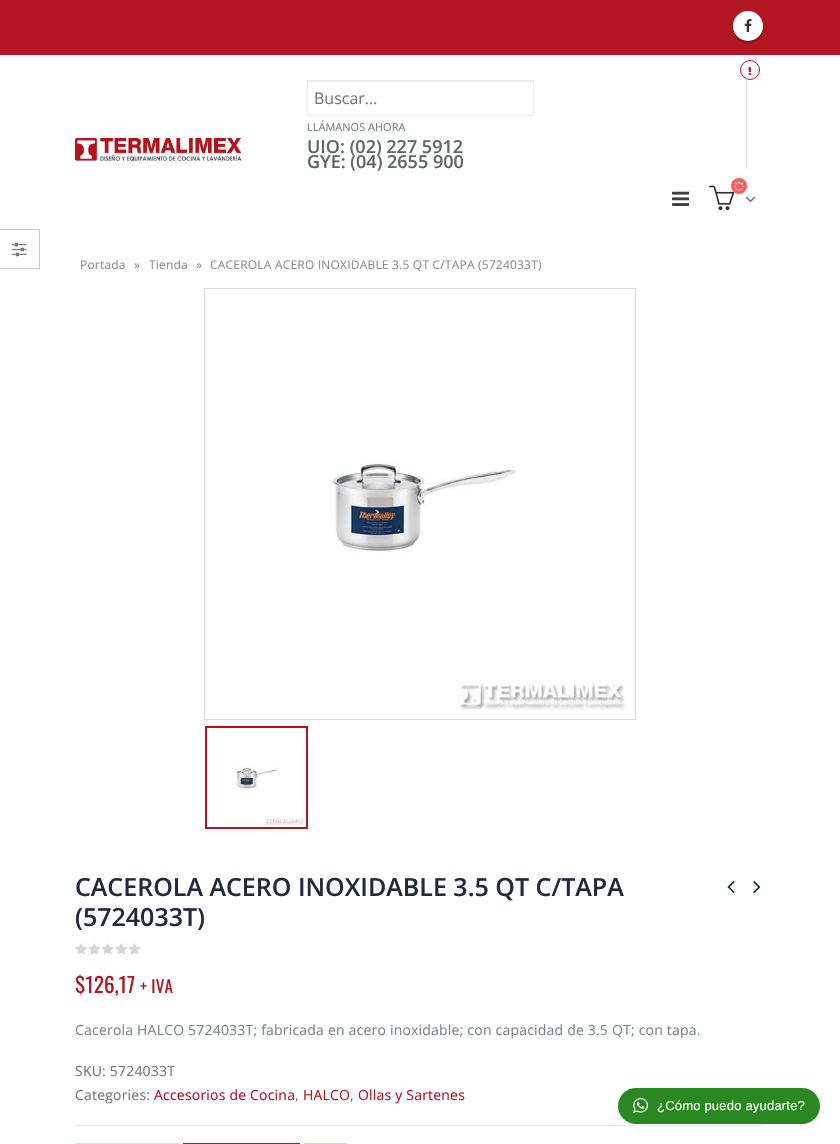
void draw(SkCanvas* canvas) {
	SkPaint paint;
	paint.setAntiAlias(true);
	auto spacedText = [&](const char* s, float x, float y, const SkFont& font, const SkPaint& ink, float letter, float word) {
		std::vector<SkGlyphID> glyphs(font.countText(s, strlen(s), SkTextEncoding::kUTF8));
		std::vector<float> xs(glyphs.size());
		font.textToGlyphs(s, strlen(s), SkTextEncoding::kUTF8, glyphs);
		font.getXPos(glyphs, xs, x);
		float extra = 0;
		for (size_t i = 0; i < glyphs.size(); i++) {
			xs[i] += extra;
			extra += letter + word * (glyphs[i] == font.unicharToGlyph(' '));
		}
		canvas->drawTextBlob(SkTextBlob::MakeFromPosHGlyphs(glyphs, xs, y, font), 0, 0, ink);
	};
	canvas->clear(0xffffffff);
	paint.setColor(0xffb31622);
	canvas->drawRect(SkRect::MakeXYWH(0, 0, 840, 55), paint);
	paint.setColor(0x4d000000);
	paint.setMaskFilter(SkMaskFilter::MakeBlur(kNormal_SkBlurStyle, 1));
	canvas->drawRoundRect(SkRect::MakeXYWH(733, 13, 30, 30), 15, 15, paint);
	paint.setMaskFilter(nullptr);
	paint.setColor(0xffffffff);
	canvas->drawCircle(748, 26, 15, paint);
	canvas->drawImageRect(SkImages::DeferredFromEncodedData(SkData::MakeFromFileName("img1.png")), SkRect::MakeXYWH(744, 19, 8, 13), SkSamplingOptions());
	canvas->drawImageRect(SkImages::DeferredFromEncodedData(SkData::MakeFromFileName("img2.png")), SkRect::MakeXYWH(75, 138, 167, 23), SkSamplingOptions());
	paint.setStroke(true);
	paint.setStrokeWidth(1);
	paint.setColor(0xffb31622);
	canvas->drawCircle(750, 70, 9.5, paint);
	canvas->drawImageRect(SkImages::DeferredFromEncodedData(SkData::MakeFromFileName("img3.png")), SkRect::MakeXYWH(748, 67, 3, 8), SkSamplingOptions());
	paint.setStroke(false);
	paint.setColor(0xffdde0e2);
	canvas->drawRect(SkRect::MakeXYWH(746, 80, 1, 89), paint);
	paint.setColor(0xffececec);
	canvas->drawRect(SkRect::MakeXYWH(308, 81, 225, 1), paint);
	paint.setStroke(true);
	paint.setColor(0xffeeeeee);
	canvas->drawRect(SkRect::MakeXYWH(307.5, 80.5, 226, 35), paint);
	SkFont f1(fontMgr->matchFamilyStyle("Open Sans", SkFontStyle::Normal()), 16);
	f1.setSubpixel(true);
	paint.setStroke(false);
	paint.setColor(0xff777777);
	canvas->drawString("Buscar...", 314, 104, f1, paint);
	SkFont f2(fontMgr->matchFamilyStyle("Open Sans", SkFontStyle::Normal()), 11);
	f2.setSubpixel(true);
	paint.setColor(0xff787d7f);
	canvas->drawString("LLÁMANOS AHORA", 307, 131, f2, paint);
	SkFont f3(fontMgr->matchFamilyStyle("Open Sans", SkFontStyle(600, SkFontStyle::kNormal_Width, SkFontStyle::kUpright_Slant)), 18);
	f3.setSubpixel(true);
	paint.setColor(0xff606669);
	canvas->drawString("UIO: (02) 227 5912", 307, 153, f3, paint);
	canvas->drawString("GYE: (04) 2655 900", 307, 168, f3, paint);
	canvas->drawImageRect(SkImages::DeferredFromEncodedData(SkData::MakeFromFileName("img4.png")), SkRect::MakeXYWH(672, 191, 18, 15), SkSamplingOptions());
	canvas->drawImageRect(SkImages::DeferredFromEncodedData(SkData::MakeFromFileName("img5.png")), SkRect::MakeXYWH(709, 185, 26, 26), SkSamplingOptions());
	paint.setColor(0xffff5b5b);
	canvas->drawCircle(739, 186, 8, paint);
	canvas->drawImageRect(SkImages::DeferredFromEncodedData(SkData::MakeFromFileName("img6.png")), SkRect::MakeXYWH(734, 181, 10, 10), SkSamplingOptions());
	canvas->drawImageRect(SkImages::DeferredFromEncodedData(SkData::MakeFromFileName("img7.png")), SkRect::MakeXYWH(745, 196, 11, 7), SkSamplingOptions());
	SkFont f4(fontMgr->matchFamilyStyle("Open Sans", SkFontStyle::Normal()), 12);
	f4.setSubpixel(true);
	paint.setColor(0xff8e8e8e);
	spacedText("Portada", 80, 269, f4, paint, 0.2, 0);
	spacedText("»", 134, 269, f4, paint, 0.2, 0);
	spacedText("Tienda", 149, 269, f4, paint, 0.2, 0);
	spacedText("»", 196, 269, f4, paint, 0.2, 0);
	spacedText("CACEROLA ACERO INOXIDABLE 3.5 QT C/TAPA (5724033T)", 210, 269, f4, paint, 0.2, 0);
	paint.setColor(0xffcccccc);
	canvas->drawRect(SkRect::MakeXYWH(0, 229, 40, 1), paint);
	canvas->drawRect(SkRect::MakeXYWH(39, 229, 1, 40), paint);
	canvas->drawRect(SkRect::MakeXYWH(0, 268, 40, 1), paint);
	canvas->drawImageRect(SkImages::DeferredFromEncodedData(SkData::MakeFromFileName("img8.png")), SkRect::MakeXYWH(12, 242, 15, 15), SkSamplingOptions());
	paint.setStroke(true);
	paint.setColor(0xffdddddd);
	canvas->drawRect(SkRect::MakeXYWH(204.5, 288.5, 431, 431), paint);
	canvas->drawImageRect(SkImages::DeferredFromEncodedData(SkData::MakeFromFileName("img9.png")), SkRect::MakeXYWH(331, 462, 294, 248), SkSamplingOptions());
	paint.setStrokeWidth(2);
	paint.setColor(0xffb31622);
	canvas->drawRect(SkRect::MakeXYWH(206, 727, 101, 101), paint);
	canvas->drawImageRect(SkImages::DeferredFromEncodedData(SkData::MakeFromFileName("img10.png")), SkRect::MakeXYWH(234, 766, 70, 61), SkSamplingOptions());
	SkFont f5(fontMgr->matchFamilyStyle("Open Sans", SkFontStyle(600, SkFontStyle::kNormal_Width, SkFontStyle::kUpright_Slant)), 25);
	f5.setSubpixel(true);
	paint.setStroke(false);
	paint.setColor(0xff21293c);
	canvas->drawString("CACEROLA ACERO INOXIDABLE 3.5 QT C/TAPA", 75, 896, f5, paint);
	canvas->drawString("(5724033T)", 75, 926, f5, paint);
	canvas->drawImageRect(SkImages::DeferredFromEncodedData(SkData::MakeFromFileName("img11.png")), SkRect::MakeXYWH(727, 881, 8, 13), SkSamplingOptions());
	canvas->drawImageRect(SkImages::DeferredFromEncodedData(SkData::MakeFromFileName("img12.png")), SkRect::MakeXYWH(753, 881, 8, 13), SkSamplingOptions());
	canvas->drawImageRect(SkImages::DeferredFromEncodedData(SkData::MakeFromFileName("img13.png")), SkRect::MakeXYWH(75, 943, 66, 12), SkSamplingOptions());
	SkFont f6(fontMgr->matchFamilyStyle("Oswald", SkFontStyle::Normal()), 21);
	f6.setSubpixel(true);
	paint.setColor(0xffb31622);
	spacedText("$126,17", 75, 993, f6, paint, 0.2, 0);
	SkFont f7(fontMgr->matchFamilyStyle("Oswald", SkFontStyle::Normal()), 17);
	f7.setSubpixel(true);
	spacedText("+ IVA", 140, 993, f7, paint, 0.2, 0);
	SkFont f8(fontMgr->matchFamilyStyle("Open Sans", SkFontStyle::Normal()), 14);
	f8.setSubpixel(true);
	paint.setColor(0xff7b858a);
	spacedText("Cacerola HALCO 5724033T; fabricada en acero inoxidable; con capacidad de 3.5 QT; con tapa.", 75, 1035, f8, paint, 0.2, 0);
	paint.setColor(0xffebebeb);
	canvas->drawRect(SkRect::MakeXYWH(75, 1125, 690, 1), paint);
	paint.setColor(0xff777777);
	spacedText("SKU: 5724033T", 75, 1076, f8, paint, 0.2, 0);
	spacedText("Categories:", 75, 1100, f8, paint, 0.2, 0);
	paint.setColor(0xffb31622);
	spacedText("Accesorios de Cocina", 154, 1100, f8, paint, 0.2, 0);
	paint.setColor(0xff777777);
	spacedText(",", 295, 1100, f8, paint, 0.2, 0);
	paint.setColor(0xffb31622);
	spacedText("HALCO", 303, 1100, f8, paint, 0.2, 0);
	paint.setColor(0xff777777);
	spacedText(",", 350, 1100, f8, paint, 0.2, 0);
	paint.setColor(0xffb31622);
	spacedText("Ollas y Sartenes", 358, 1100, f8, paint, 0.2, 0);
	paint.setStroke(true);
	paint.setStrokeWidth(1);
	paint.setColor(0xffdae2e6);
	canvas->drawRect(SkRect::MakeXYWH(75.5, 1143.5, 29, 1), paint);
	paint.setStroke(false);
	canvas->drawRect(SkRect::MakeXYWH(105, 1143, 44, 1), paint);
	paint.setStroke(true);
	canvas->drawRect(SkRect::MakeXYWH(149.5, 1143.5, 29, 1), paint);
	paint.setStroke(false);
	paint.setColor(0xffb31622);
	canvas->drawRect(SkRect::MakeXYWH(183, 1143, 117, 1), paint);
	paint.setStroke(true);
	paint.setColor(0xffd8d8d6);
	canvas->drawRect(SkRect::MakeXYWH(304.5, 1143.5, 42, 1), paint);
	paint.setStroke(false);
	paint.setColor(0xff298820);
	canvas->drawRoundRect(SkRect::MakeXYWH(618, 1088, 202, 36), 18, 18, paint);
	canvas->drawImageRect(SkImages::DeferredFromEncodedData(SkData::MakeFromFileName("img14.png")), SkRect::MakeXYWH(633, 1098, 15, 15), SkSamplingOptions());
	SkFont f9(fontMgr->matchFamilyStyle("Liberation Sans", SkFontStyle::Normal()), 13);
	f9.setSubpixel(true);
	paint.setColor(0xffffffff);
	spacedText("¿Cómo puedo ayudarte?", 657, 1110, f9, paint, 0.2, 0);
}
